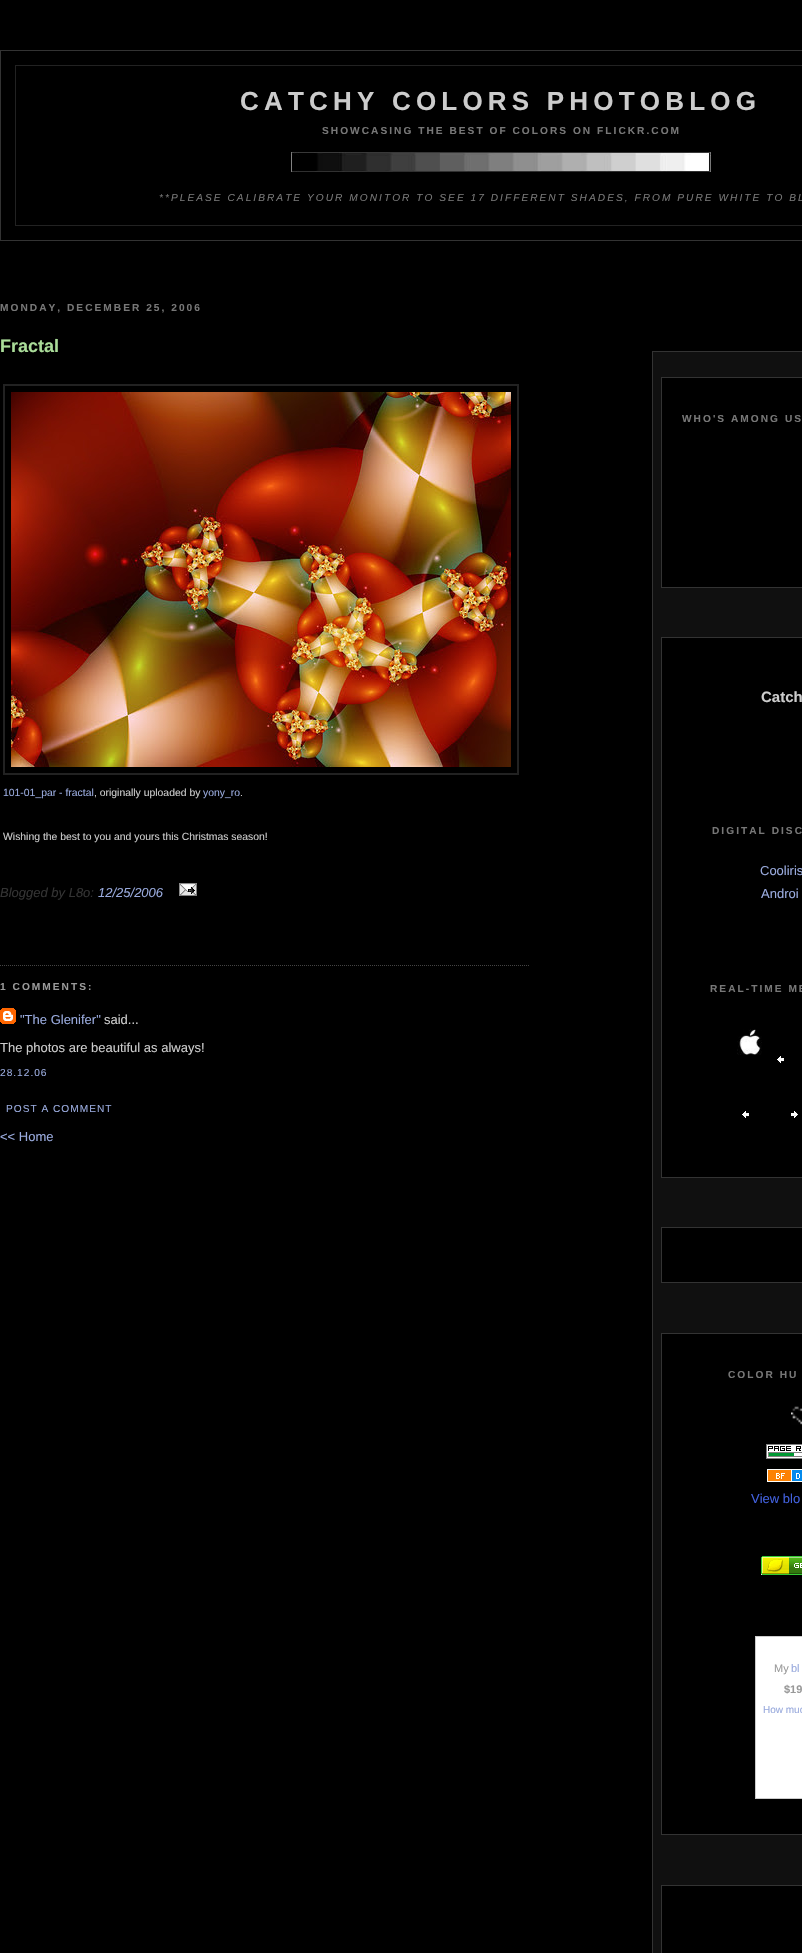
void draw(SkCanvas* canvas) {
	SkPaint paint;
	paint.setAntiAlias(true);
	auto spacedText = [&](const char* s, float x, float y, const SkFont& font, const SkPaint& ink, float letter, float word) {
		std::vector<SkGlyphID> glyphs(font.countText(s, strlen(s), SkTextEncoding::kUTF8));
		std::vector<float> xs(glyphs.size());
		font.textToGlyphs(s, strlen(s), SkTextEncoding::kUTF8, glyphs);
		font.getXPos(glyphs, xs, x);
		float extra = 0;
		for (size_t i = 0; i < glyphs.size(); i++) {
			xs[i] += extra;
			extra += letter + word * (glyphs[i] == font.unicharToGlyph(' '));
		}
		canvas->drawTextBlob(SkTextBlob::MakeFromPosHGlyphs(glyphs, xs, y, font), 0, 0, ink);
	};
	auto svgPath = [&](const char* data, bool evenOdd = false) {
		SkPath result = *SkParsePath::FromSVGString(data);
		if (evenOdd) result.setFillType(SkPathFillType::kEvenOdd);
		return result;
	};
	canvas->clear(0xff000000);
	paint.setStroke(true);
	paint.setStrokeWidth(1);
	paint.setColor(0xff333333);
	canvas->drawRect(SkRect::MakeXYWH(0.5, 50.5, 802, 190), paint);
	paint.setStroke(false);
	paint.setColor(0xff222222);
	canvas->drawRect(SkRect::MakeXYWH(15, 65, 787, 1), paint);
	canvas->drawRect(SkRect::MakeXYWH(15, 65, 1, 59), paint);
	SkFont f1(fontMgr->matchFamilyStyle("Liberation Sans", SkFontStyle::Bold()), 26);
	f1.setSubpixel(true);
	paint.setColor(0xffcccccc);
	spacedText("CATCHY COLORS PHOTOBLOG", 240, 110, f1, paint, 5.2, 0);
	paint.setColor(0xff222222);
	canvas->drawRect(SkRect::MakeXYWH(15, 225, 787, 1), paint);
	canvas->drawRect(SkRect::MakeXYWH(15, 124, 1, 102), paint);
	SkFont f2(fontMgr->matchFamilyStyle("Liberation Sans", SkFontStyle::Bold()), 10.15);
	f2.setSubpixel(true);
	paint.setColor(0xff777777);
	spacedText("SHOWCASING THE BEST OF COLORS ON FLICKR.COM", 322, 134, f2, paint, 2.03, 0);
	canvas->drawImageRect(SkImages::DeferredFromEncodedData(SkData::MakeFromFileName("img1.png")), SkRect::MakeXYWH(291, 152, 420, 20), SkSamplingOptions());
	SkFont f3(fontMgr->matchFamilyStyle("Liberation Sans", SkFontStyle::Italic()), 10.15);
	f3.setSubpixel(true);
	spacedText("**PLEASE CALIBRATE YOUR MONITOR TO SEE 17 DIFFERENT SHADES, FROM PURE WHITE TO BL", 159, 201, f3, paint, 2.03, 0);
	spacedText("MONDAY, DECEMBER 25, 2006", 0, 311, f2, paint, 2.03, 0);
	paint.setStroke(true);
	paint.setColor(0xff444444);
	paint.setPathEffect(SkDashPathEffect::Make({{1, 1}}, 0));
	canvas->drawPath(svgPath("M0 965.5H530"), paint);
	paint.setPathEffect(nullptr);
	SkFont f4(fontMgr->matchFamilyStyle("Liberation Sans", SkFontStyle::Bold()), 18);
	f4.setSubpixel(true);
	paint.setStroke(false);
	paint.setColor(0xffaadd99);
	canvas->drawString("Fractal", 0, 352, f4, paint);
	paint.setStroke(true);
	paint.setStrokeWidth(2);
	paint.setColor(0xff222222);
	canvas->drawRect(SkRect::MakeXYWH(4, 385, 514, 389), paint);
	canvas->drawImageRect(SkImages::DeferredFromEncodedData(SkData::MakeFromFileName("img2.png")), SkRect::MakeXYWH(11, 392, 500, 375), SkSamplingOptions());
	SkFont f5(fontMgr->matchFamilyStyle("Liberation Sans", SkFontStyle::Normal()), 10.4);
	f5.setSubpixel(true);
	paint.setStroke(false);
	paint.setColor(0xff99aadd);
	canvas->drawString("101-01_par - fractal", 3, 796, f5, paint);
	paint.setColor(0xffcccccc);
	canvas->drawString(", originally uploaded by", 94, 796, f5, paint);
	paint.setColor(0xff99aadd);
	canvas->drawString("yony_ro", 203, 796, f5, paint);
	paint.setColor(0xffcccccc);
	canvas->drawString(".", 240, 796, f5, paint);
	canvas->drawString("Wishing the best to you and yours this Christmas season!", 3, 840, f5, paint);
	SkFont f6(fontMgr->matchFamilyStyle("Liberation Sans", SkFontStyle::Italic()), 13);
	f6.setSubpixel(true);
	paint.setColor(0xff333333);
	canvas->drawString("Blogged by L8o:", 0, 897, f6, paint);
	paint.setColor(0xff99aadd);
	canvas->drawString("12/25/2006", 98, 897, f6, paint);
	canvas->drawImageRect(SkImages::DeferredFromEncodedData(SkData::MakeFromFileName("img3.png")), SkRect::MakeXYWH(179, 883, 18, 13), SkSamplingOptions());
	paint.setColor(0xff999999);
	spacedText("1 COMMENTS:", 0, 990, f2, paint, 2.03, 0);
	canvas->drawImageRect(SkImages::DeferredFromEncodedData(SkData::MakeFromFileName("img4.png")), SkRect::MakeXYWH(0, 1008, 16, 16), SkSamplingOptions());
	SkFont f7(fontMgr->matchFamilyStyle("Liberation Sans", SkFontStyle::Normal()), 13);
	f7.setSubpixel(true);
	paint.setColor(0xff99aadd);
	canvas->drawString("\"The Glenifer\"", 20, 1024, f7, paint);
	paint.setColor(0xffcccccc);
	canvas->drawString("said...", 104, 1024, f7, paint);
	canvas->drawString("The photos are beautiful as always!", 0, 1052, f7, paint);
	SkFont f8(fontMgr->matchFamilyStyle("Liberation Sans", SkFontStyle::Normal()), 10.15);
	f8.setSubpixel(true);
	paint.setColor(0xff99aadd);
	spacedText("28.12.06", 0, 1076, f8, paint, 1, 0);
	spacedText("POST A COMMENT", 6, 1112, f8, paint, 1, 0);
	canvas->drawString("<< Home", 0, 1141, f7, paint);
	paint.setColor(0xff101010);
	canvas->drawRect(SkRect::MakeXYWH(652.5, 351.5, 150, 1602), paint);
	paint.setStroke(true);
	paint.setStrokeWidth(1);
	paint.setColor(0xff333333);
	canvas->drawRect(SkRect::MakeXYWH(652.5, 351.5, 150, 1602), paint);
	paint.setStroke(false);
	paint.setColor(0xff000000);
	canvas->drawRect(SkRect::MakeXYWH(661.5, 377.5, 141, 210), paint);
	paint.setStroke(true);
	paint.setColor(0xff333333);
	canvas->drawRect(SkRect::MakeXYWH(661.5, 377.5, 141, 210), paint);
	paint.setStroke(false);
	paint.setColor(0xff777777);
	spacedText("WHO'S AMONG US", 682, 422, f2, paint, 2.03, 0);
	paint.setColor(0xff000000);
	canvas->drawRect(SkRect::MakeXYWH(661.5, 637.5, 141, 540), paint);
	paint.setStroke(true);
	paint.setColor(0xff333333);
	canvas->drawRect(SkRect::MakeXYWH(661.5, 637.5, 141, 540), paint);
	SkFont f9(fontMgr->matchFamilyStyle("Liberation Sans", SkFontStyle::Bold()), 15);
	f9.setSubpixel(true);
	paint.setStroke(false);
	paint.setColor(0xffcccccc);
	canvas->drawString("Catch", 761, 702, f9, paint);
	paint.setColor(0xff777777);
	spacedText("DIGITAL DISC", 712, 834, f2, paint, 2.03, 0);
	paint.setColor(0xff99aadd);
	canvas->drawString("Cooliris", 760, 875, f7, paint);
	canvas->drawString("Androi", 761, 898, f7, paint);
	paint.setColor(0xff777777);
	spacedText("REAL-TIME ME", 710, 992, f2, paint, 2.03, 0);
	canvas->drawImageRect(SkImages::DeferredFromEncodedData(SkData::MakeFromFileName("img5.png")), SkRect::MakeXYWH(737, 1029, 25, 26), SkSamplingOptions());
	canvas->drawImageRect(SkImages::DeferredFromEncodedData(SkData::MakeFromFileName("img6.png")), SkRect::MakeXYWH(777, 1056, 7, 7), SkSamplingOptions());
	canvas->drawImageRect(SkImages::DeferredFromEncodedData(SkData::MakeFromFileName("img6.png")), SkRect::MakeXYWH(742, 1111, 7, 7), SkSamplingOptions());
	canvas->drawImageRect(SkImages::DeferredFromEncodedData(SkData::MakeFromFileName("img7.png")), SkRect::MakeXYWH(791, 1111, 7, 7), SkSamplingOptions());
	paint.setColor(0xff000000);
	canvas->drawRect(SkRect::MakeXYWH(661.5, 1227.5, 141, 55), paint);
	paint.setStroke(true);
	paint.setColor(0xff333333);
	canvas->drawRect(SkRect::MakeXYWH(661.5, 1227.5, 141, 55), paint);
	paint.setStroke(false);
	paint.setColor(0xff000000);
	canvas->drawRect(SkRect::MakeXYWH(661.5, 1333.5, 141, 501), paint);
	paint.setStroke(true);
	paint.setColor(0xff333333);
	canvas->drawRect(SkRect::MakeXYWH(661.5, 1333.5, 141, 501), paint);
	paint.setStroke(false);
	paint.setColor(0xff777777);
	spacedText("COLOR HU", 728, 1378, f2, paint, 2.03, 0);
	canvas->drawImageRect(SkImages::DeferredFromEncodedData(SkData::MakeFromFileName("img8.png")), SkRect::MakeXYWH(791, 1406, 11, 19), SkSamplingOptions());
	canvas->drawImageRect(SkImages::DeferredFromEncodedData(SkData::MakeFromFileName("img9.png")), SkRect::MakeXYWH(766, 1444, 36, 15), SkSamplingOptions());
	canvas->drawImageRect(SkImages::DeferredFromEncodedData(SkData::MakeFromFileName("img10.png")), SkRect::MakeXYWH(767, 1469, 35, 13), SkSamplingOptions());
	paint.setColor(0xff4261df);
	canvas->drawString("View blo", 751, 1503, f7, paint);
	canvas->drawImageRect(SkImages::DeferredFromEncodedData(SkData::MakeFromFileName("img11.png")), SkRect::MakeXYWH(761, 1556, 41, 19), SkSamplingOptions());
	paint.setColor(0xffffffff);
	canvas->drawRect(SkRect::MakeXYWH(755.5, 1636.5, 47, 162), paint);
	paint.setStroke(true);
	paint.setColor(0xffcccccc);
	canvas->drawRect(SkRect::MakeXYWH(755.5, 1636.5, 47, 162), paint);
	SkFont f10(fontMgr->matchFamilyStyle("Liberation Sans", SkFontStyle::Normal()), 11);
	f10.setSubpixel(true);
	paint.setStroke(false);
	paint.setColor(0xff999999);
	canvas->drawString("My", 774, 1672, f10, paint);
	paint.setColor(0xff99aadd);
	canvas->drawString("bl", 791, 1672, f10, paint);
	SkFont f11(fontMgr->matchFamilyStyle("Liberation Sans", SkFontStyle::Bold()), 11);
	f11.setSubpixel(true);
	paint.setColor(0xff999999);
	canvas->drawString("$19", 784, 1693, f11, paint);
	SkFont f12(fontMgr->matchFamilyStyle("Liberation Sans", SkFontStyle::Normal()), 10);
	f12.setSubpixel(true);
	paint.setColor(0xff99aadd);
	canvas->drawString("How muc", 763, 1713, f12, paint);
	paint.setColor(0xff000000);
	canvas->drawRect(SkRect::MakeXYWH(661.5, 1885.5, 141, 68), paint);
	paint.setStroke(true);
	paint.setColor(0xff333333);
	canvas->drawRect(SkRect::MakeXYWH(661.5, 1885.5, 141, 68), paint);
}
